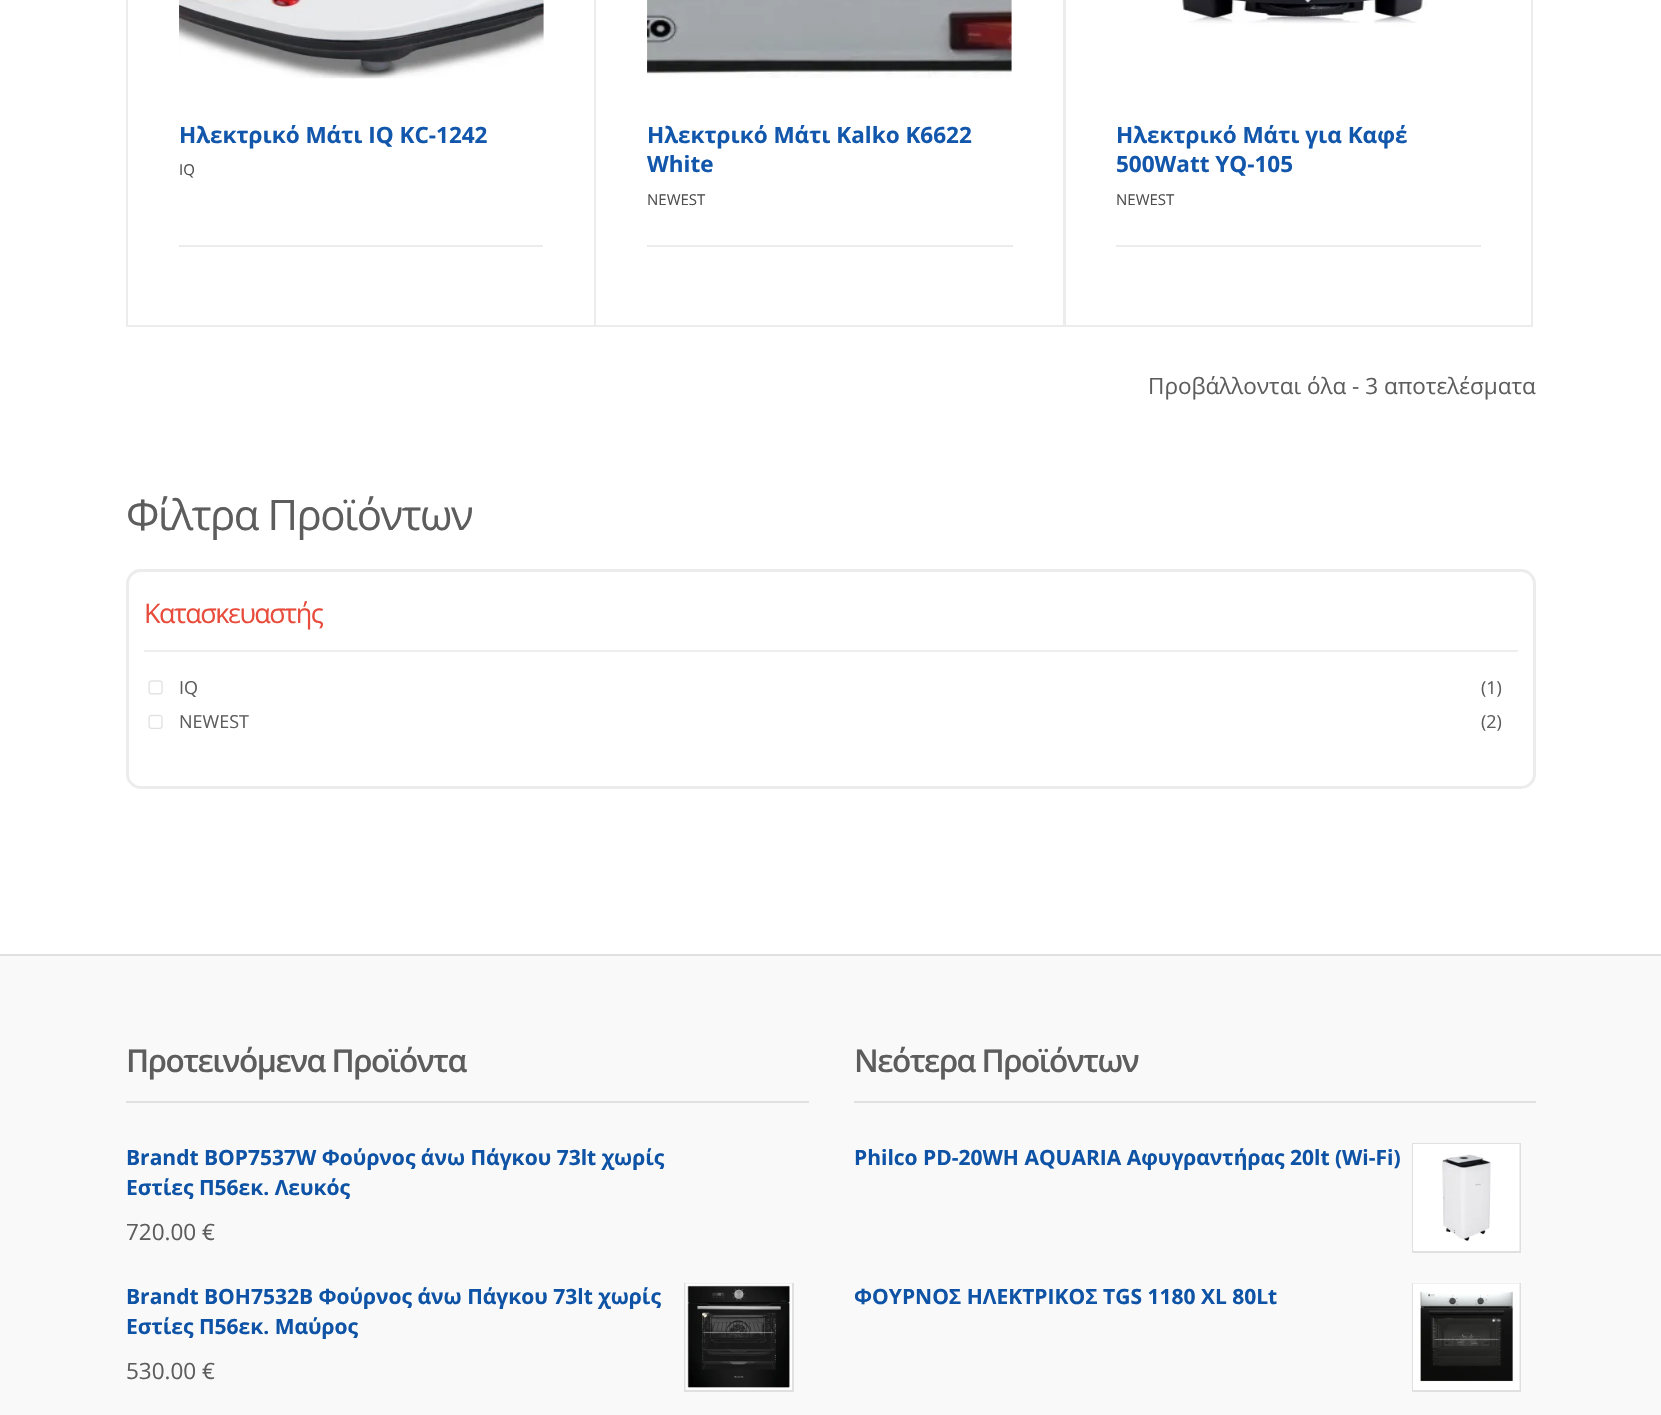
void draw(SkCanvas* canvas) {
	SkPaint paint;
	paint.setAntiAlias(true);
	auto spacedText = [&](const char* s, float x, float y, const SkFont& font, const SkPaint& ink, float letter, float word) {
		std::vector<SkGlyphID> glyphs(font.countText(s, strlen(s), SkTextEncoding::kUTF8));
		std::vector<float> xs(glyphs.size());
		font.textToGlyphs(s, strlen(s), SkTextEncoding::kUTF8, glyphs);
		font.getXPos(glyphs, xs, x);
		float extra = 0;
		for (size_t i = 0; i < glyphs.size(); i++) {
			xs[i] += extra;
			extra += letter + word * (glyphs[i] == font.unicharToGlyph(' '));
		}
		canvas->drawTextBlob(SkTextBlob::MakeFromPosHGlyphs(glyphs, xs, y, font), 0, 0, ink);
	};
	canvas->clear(0xffffffff);
	paint.setStroke(true);
	paint.setStrokeWidth(2);
	paint.setColor(0xffececec);
	canvas->drawRect(SkRect::MakeXYWH(127, -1, 468, 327), paint);
	canvas->drawImageRect(SkImages::DeferredFromEncodedData(SkData::MakeFromFileName("img1.png")), SkRect::MakeXYWH(179, 0, 365, 79), SkSamplingOptions());
	SkFont f1(fontMgr->matchFamilyStyle("Open Sans", SkFontStyle::Bold()), 22.5);
	f1.setSubpixel(true);
	paint.setStroke(false);
	paint.setColor(0xff1257ab);
	canvas->drawString("Ηλεκτρικό Μάτι IQ KC-1242", 179, 143, f1, paint);
	SkFont f2(fontMgr->matchFamilyStyle("Open Sans", SkFontStyle::Normal()), 15);
	f2.setSubpixel(true);
	paint.setColor(0xff4f4f4f);
	canvas->drawString("IQ", 179, 175, f2, paint);
	paint.setColor(0xffececec);
	canvas->drawRect(SkRect::MakeXYWH(179, 245, 364, 2), paint);
	paint.setStroke(true);
	canvas->drawRect(SkRect::MakeXYWH(595, -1, 469, 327), paint);
	canvas->drawImageRect(SkImages::DeferredFromEncodedData(SkData::MakeFromFileName("img2.png")), SkRect::MakeXYWH(647, 0, 365, 78), SkSamplingOptions());
	paint.setStroke(false);
	paint.setColor(0xff1257ab);
	canvas->drawString("Ηλεκτρικό Μάτι Kalko K6622", 647, 143, f1, paint);
	canvas->drawString("White", 647, 172, f1, paint);
	paint.setColor(0xff4f4f4f);
	canvas->drawString("NEWEST", 647, 205, f2, paint);
	paint.setColor(0xffececec);
	canvas->drawRect(SkRect::MakeXYWH(647, 245, 366, 2), paint);
	paint.setStroke(true);
	canvas->drawRect(SkRect::MakeXYWH(1065, -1, 467, 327), paint);
	canvas->drawImageRect(SkImages::DeferredFromEncodedData(SkData::MakeFromFileName("img3.png")), SkRect::MakeXYWH(1179, 0, 248, 27), SkSamplingOptions());
	paint.setStroke(false);
	paint.setColor(0xff1257ab);
	canvas->drawString("Ηλεκτρικό Μάτι για Καφέ", 1116, 143, f1, paint);
	canvas->drawString("500Watt YQ-105", 1116, 172, f1, paint);
	paint.setColor(0xff4f4f4f);
	canvas->drawString("NEWEST", 1116, 205, f2, paint);
	paint.setColor(0xffececec);
	canvas->drawRect(SkRect::MakeXYWH(1116, 245, 365, 2), paint);
	SkFont f3(fontMgr->matchFamilyStyle("Open Sans", SkFontStyle::Normal()), 22.5);
	f3.setSubpixel(true);
	paint.setColor(0xff5d5d5d);
	canvas->drawString("Προβάλλονται όλα - 3 αποτελέσματα", 1148, 394, f3, paint);
	SkFont f4(fontMgr->matchFamilyStyle("Open Sans", SkFontStyle::Normal()), 42);
	f4.setSubpixel(true);
	spacedText("Φίλτρα Προϊόντων", 126, 530, f4, paint, -1.5, 0);
	paint.setStroke(true);
	paint.setStrokeWidth(3);
	paint.setColor(0xffececec);
	canvas->drawRoundRect(SkRect::MakeXYWH(127.5, 570.5, 1407, 217), 13.5, 13.5, paint);
	paint.setStroke(false);
	paint.setColor(0xffeeeeee);
	canvas->drawRect(SkRect::MakeXYWH(144, 650, 1374, 2), paint);
	SkFont f5(fontMgr->matchFamilyStyle("Open Sans", SkFontStyle::Normal()), 27);
	f5.setSubpixel(true);
	paint.setColor(0xffe74c3c);
	spacedText("Κατασκευαστής", 144, 623, f5, paint, -1.5, 0);
	canvas->drawImageRect(SkImages::DeferredFromEncodedData(SkData::MakeFromFileName("img4.png")), SkRect::MakeXYWH(148, 680, 15, 15), SkSamplingOptions());
	SkFont f6(fontMgr->matchFamilyStyle("Open Sans", SkFontStyle::Normal()), 18);
	f6.setSubpixel(true);
	paint.setColor(0xff5d5d5d);
	canvas->drawString("IQ", 179, 694, f6, paint);
	canvas->drawString("(1)", 1481, 694, f6, paint);
	canvas->drawImageRect(SkImages::DeferredFromEncodedData(SkData::MakeFromFileName("img5.png")), SkRect::MakeXYWH(148, 714, 15, 15), SkSamplingOptions());
	canvas->drawString("NEWEST", 179, 728, f6, paint);
	canvas->drawString("(2)", 1481, 728, f6, paint);
	paint.setColor(0xfff9f9f9);
	canvas->drawRect(SkRect::MakeXYWH(0, 956, 1661, 459), paint);
	paint.setColor(0xffe0e0e0);
	canvas->drawRect(SkRect::MakeXYWH(0, 954, 1661, 2), paint);
	canvas->drawRect(SkRect::MakeXYWH(126, 1101, 683, 2), paint);
	SkFont f7(fontMgr->matchFamilyStyle("Open Sans", SkFontStyle(600, SkFontStyle::kNormal_Width, SkFontStyle::kUpright_Slant)), 31.5);
	f7.setSubpixel(true);
	paint.setColor(0xff5d5d5d);
	spacedText("Προτεινόμενα Προϊόντα", 126, 1072, f7, paint, -1.5, 0);
	SkFont f8(fontMgr->matchFamilyStyle("Open Sans", SkFontStyle::Bold()), 21);
	f8.setSubpixel(true);
	paint.setColor(0xff0e53a5);
	canvas->drawString("Brandt BOP7537W Φούρνος άνω Πάγκου 73lt χωρίς", 126, 1165, f8, paint);
	canvas->drawString("Εστίες Π56εκ. Λευκός", 126, 1195, f8, paint);
	paint.setColor(0xff5d5d5d);
	canvas->drawString("720.00 €", 126, 1240, f3, paint);
	paint.setColor(0xff0e53a5);
	canvas->drawString("Brandt BOH7532B Φούρνος άνω Πάγκου 73lt χωρίς", 126, 1304, f8, paint);
	canvas->drawString("Εστίες Π56εκ. Μαύρος", 126, 1334, f8, paint);
	paint.setStroke(true);
	paint.setStrokeWidth(2);
	paint.setColor(0xffe0e0e0);
	canvas->drawRect(SkRect::MakeXYWH(685, 1284, 108, 107), paint);
	canvas->drawImageRect(SkImages::DeferredFromEncodedData(SkData::MakeFromFileName("img6.png")), SkRect::MakeXYWH(685, 1283, 107, 107), SkSamplingOptions());
	paint.setStroke(false);
	paint.setColor(0xff5d5d5d);
	canvas->drawString("530.00 €", 126, 1379, f3, paint);
	paint.setColor(0xffe0e0e0);
	canvas->drawRect(SkRect::MakeXYWH(854, 1101, 682, 2), paint);
	paint.setColor(0xff5d5d5d);
	spacedText("Νεότερα Προϊόντων", 854, 1072, f7, paint, -1.5, 0);
	paint.setColor(0xff0e53a5);
	canvas->drawString("Philco PD-20WH AQUARIA Αφυγραντήρας 20lt (Wi-Fi)", 854, 1165, f8, paint);
	paint.setColor(0xffffffff);
	canvas->drawRect(SkRect::MakeXYWH(1414, 1250, 105, 1), paint);
	paint.setStroke(true);
	paint.setColor(0xffe0e0e0);
	canvas->drawRect(SkRect::MakeXYWH(1413, 1144, 107, 108), paint);
	canvas->drawImageRect(SkImages::DeferredFromEncodedData(SkData::MakeFromFileName("img7.png")), SkRect::MakeXYWH(1413, 1144, 107, 107), SkSamplingOptions());
	paint.setStroke(false);
	paint.setColor(0xff0e53a5);
	canvas->drawString("ΦΟΥΡΝΟΣ ΗΛΕΚΤΡΙΚΟΣ TGS 1180 XL 80Lt", 854, 1304, f8, paint);
	paint.setStroke(true);
	paint.setColor(0xffe0e0e0);
	canvas->drawRect(SkRect::MakeXYWH(1413, 1284, 107, 107), paint);
	canvas->drawImageRect(SkImages::DeferredFromEncodedData(SkData::MakeFromFileName("img8.png")), SkRect::MakeXYWH(1413, 1283, 107, 107), SkSamplingOptions());
}
